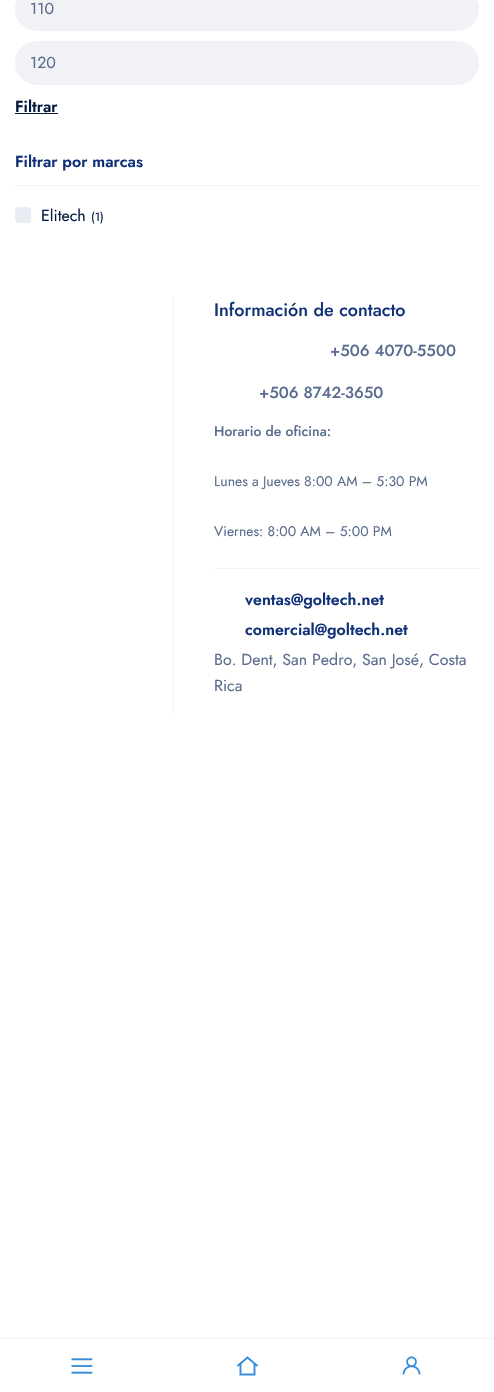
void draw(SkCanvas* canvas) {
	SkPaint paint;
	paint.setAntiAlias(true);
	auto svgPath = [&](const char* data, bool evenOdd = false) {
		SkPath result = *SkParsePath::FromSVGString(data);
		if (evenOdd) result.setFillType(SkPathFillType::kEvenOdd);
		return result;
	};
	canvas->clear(0xffffffff);
	paint.setColor(0xfff0f2f5);
	canvas->drawRoundRect(SkRect::MakeXYWH(15, -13, 464, 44), 22, 22, paint);
	SkFont f1(fontMgr->matchFamilyStyle("Jost", SkFontStyle::Normal()), 16);
	f1.setSubpixel(true);
	paint.setColor(0xff5b6c8f);
	canvas->drawString("110", 30, 14, f1, paint);
	paint.setColor(0xfff0f2f5);
	canvas->drawRoundRect(SkRect::MakeXYWH(15, 41, 464, 44), 22, 22, paint);
	paint.setColor(0xff5b6c8f);
	canvas->drawString("120", 30, 68, f1, paint);
	SkFont f2(fontMgr->matchFamilyStyle("Jost", SkFontStyle(600, SkFontStyle::kNormal_Width, SkFontStyle::kUpright_Slant)), 16);
	f2.setSubpixel(true);
	paint.setColor(0xff051940);
	canvas->drawString("Filtrar", 15, 112, f2, paint);
	canvas->drawRect(SkRect::MakeXYWH(15, 113, 43, 1), paint);
	paint.setColor(0xfff0f2f5);
	canvas->drawRect(SkRect::MakeXYWH(15, 185, 464, 1), paint);
	paint.setColor(0xff103178);
	canvas->drawString("Filtrar por marcas", 15, 167, f2, paint);
	paint.setColor(0xffe8ecf3);
	canvas->drawRoundRect(SkRect::MakeXYWH(15, 207, 16, 16), 4, 4, paint);
	paint.setColor(0xff051940);
	canvas->drawString("Elitech", 41, 221, f1, paint);
	SkFont f3(fontMgr->matchFamilyStyle("Jost", SkFontStyle::Normal()), 12);
	f3.setSubpixel(true);
	canvas->drawString("(1)", 91, 221, f3, paint);
	paint.setColor(0xfff0f2f5);
	canvas->drawRect(SkRect::MakeXYWH(173, 297, 1, 417), paint);
	SkFont f4(fontMgr->matchFamilyStyle("Jost", SkFontStyle(500, SkFontStyle::kNormal_Width, SkFontStyle::kUpright_Slant)), 18);
	f4.setSubpixel(true);
	paint.setColor(0xff103178);
	canvas->drawString("Información de contacto", 214, 316, f4, paint);
	SkFont f5(fontMgr->matchFamilyStyle("Jost", SkFontStyle(500, SkFontStyle::kNormal_Width, SkFontStyle::kUpright_Slant)), 16);
	f5.setSubpixel(true);
	paint.setColor(0xff5b6c8f);
	canvas->drawString("+506 4070-5500", 330, 356, f5, paint);
	canvas->drawString("+506 8742-3650", 259, 398, f5, paint);
	SkFont f6(fontMgr->matchFamilyStyle("Jost", SkFontStyle(500, SkFontStyle::kNormal_Width, SkFontStyle::kUpright_Slant)), 14);
	f6.setSubpixel(true);
	canvas->drawString("Horario de oficina:", 214, 436, f6, paint);
	SkFont f7(fontMgr->matchFamilyStyle("Jost", SkFontStyle::Normal()), 14);
	f7.setSubpixel(true);
	canvas->drawString("Lunes a Jueves 8:00 AM – 5:30 PM", 214, 486, f7, paint);
	canvas->drawString("Viernes: 8:00 AM – 5:00 PM", 214, 536, f7, paint);
	paint.setColor(0xfff0f2f5);
	canvas->drawRect(SkRect::MakeXYWH(214, 568, 265, 1), paint);
	paint.setColor(0xff103178);
	canvas->drawString("ventas@goltech.net", 245, 605, f2, paint);
	canvas->drawString("comercial@goltech.net", 245, 635, f2, paint);
	paint.setColor(0xff5b6c8f);
	canvas->drawString("Bo. Dent, San Pedro, San José, Costa", 214, 665, f1, paint);
	canvas->drawString("Rica", 214, 691, f1, paint);
	paint.setColor(0xfff0f2f5);
	canvas->drawRect(SkRect::MakeXYWH(0, 1338, 494, 1), paint);
	canvas->drawImageRect(SkImages::DeferredFromEncodedData(SkData::MakeFromFileName("img1.png")), SkRect::MakeXYWH(71, 1358, 22, 16), SkSamplingOptions());
	paint.setStroke(true);
	paint.setStrokeWidth(1.9);
	paint.setColor(0xff368dda);
	canvas->drawPath(svgPath("M254.5 1364V1374.5H240.5V1364M257.5 1366L247.5 1357.5L237.5 1366"), paint);
	canvas->drawImageRect(SkImages::DeferredFromEncodedData(SkData::MakeFromFileName("img2.png")), SkRect::MakeXYWH(402, 1356, 19, 19), SkSamplingOptions());
}
